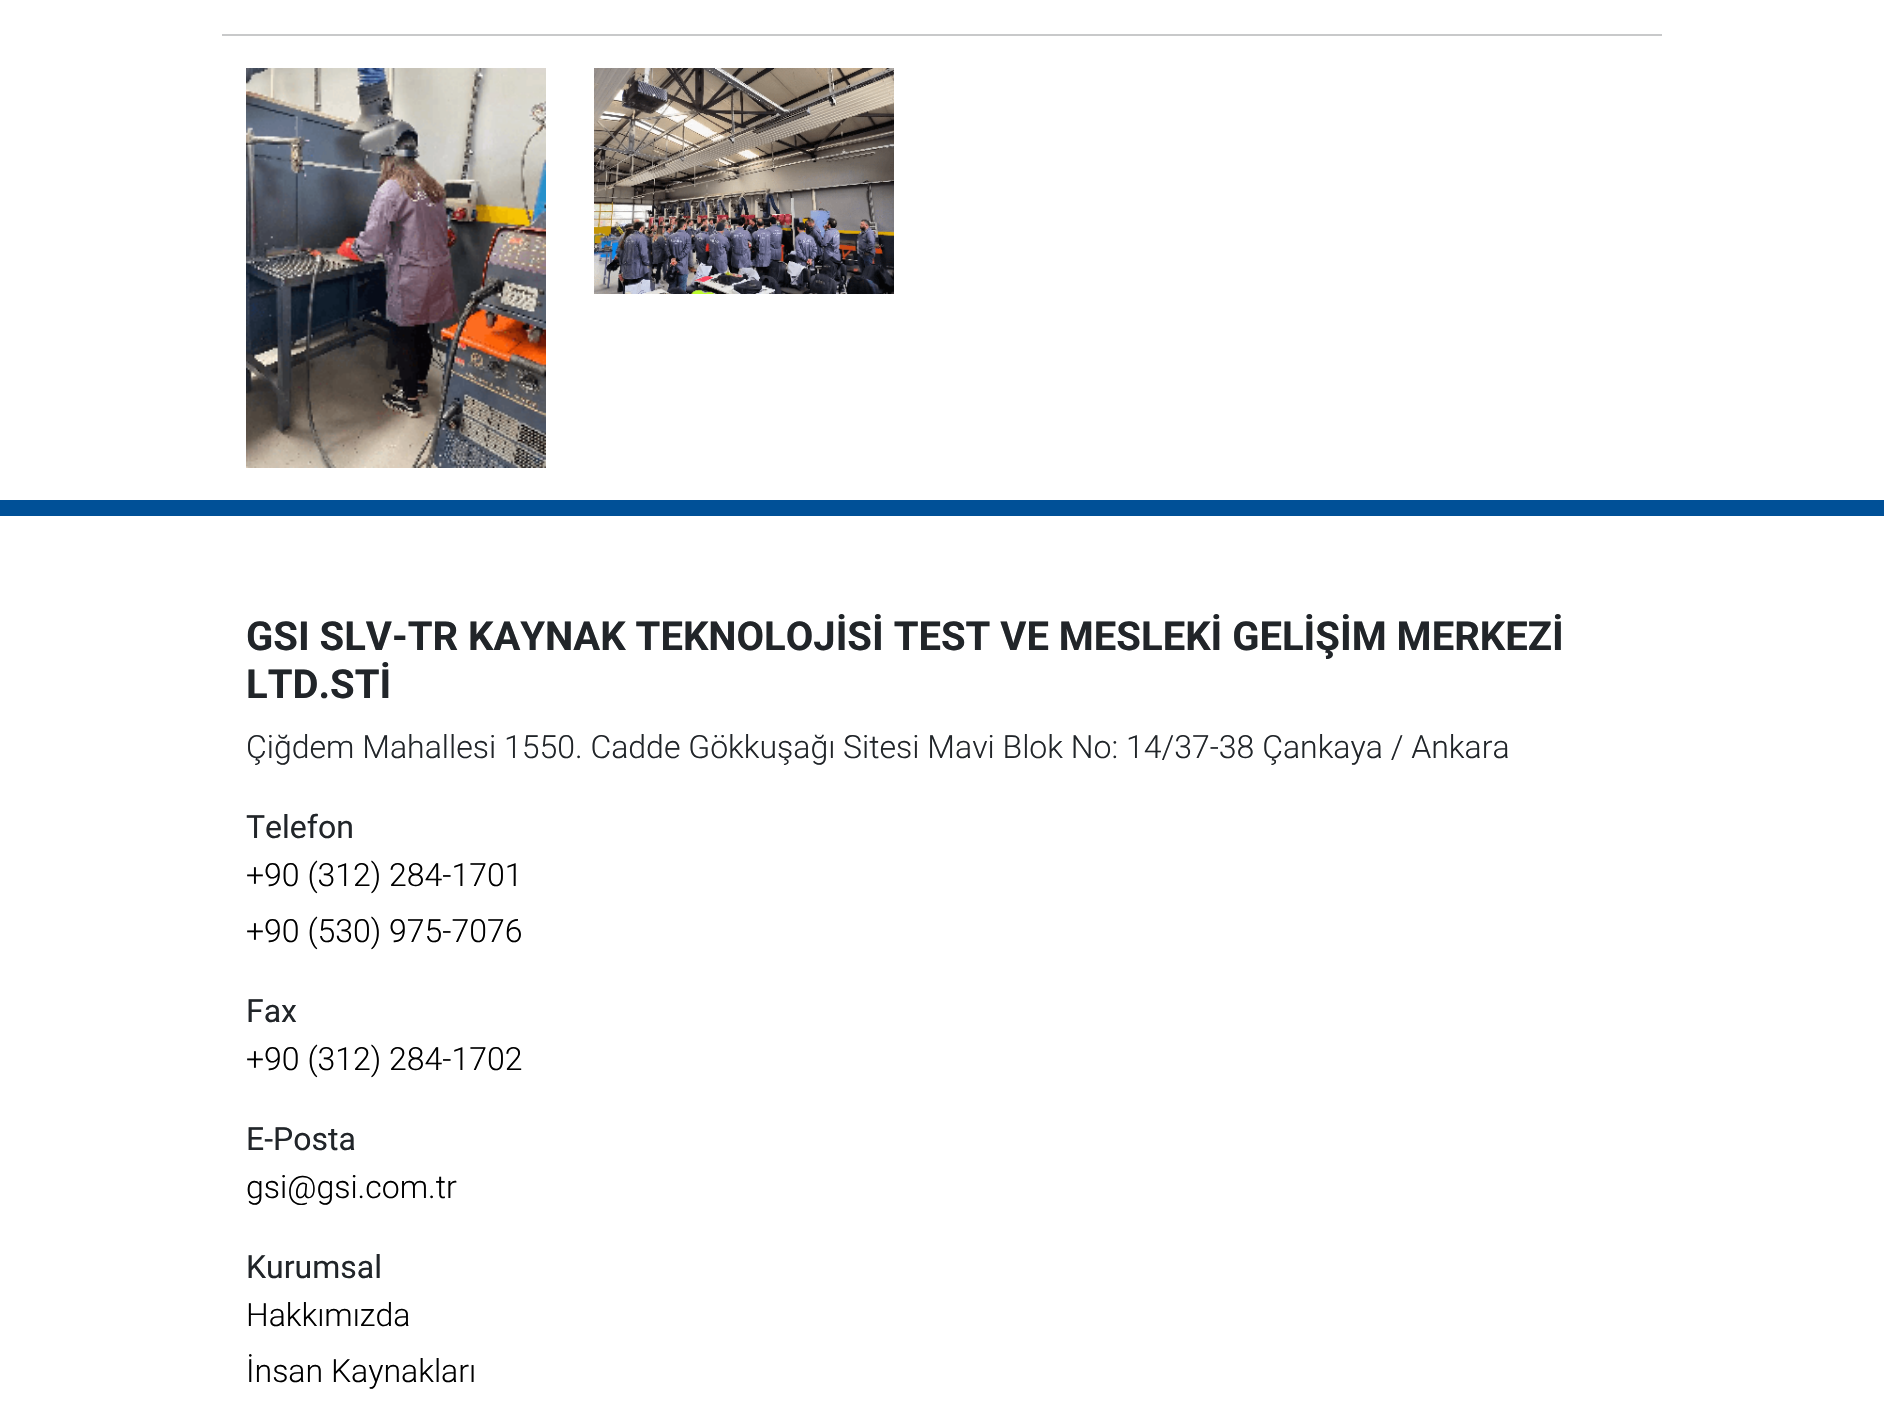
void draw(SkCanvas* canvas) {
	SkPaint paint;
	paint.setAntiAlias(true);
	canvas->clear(0xffffffff);
	paint.setColor(0xffc8c9ca);
	canvas->drawRect(SkRect::MakeXYWH(222, 34, 1440, 2), paint);
	canvas->drawImageRect(SkImages::DeferredFromEncodedData(SkData::MakeFromFileName("img1.png")), SkRect::MakeXYWH(246, 68, 300, 400), SkSamplingOptions());
	canvas->drawImageRect(SkImages::DeferredFromEncodedData(SkData::MakeFromFileName("img2.png")), SkRect::MakeXYWH(594, 68, 300, 226), SkSamplingOptions());
	paint.setColor(0xff005097);
	canvas->drawRect(SkRect::MakeXYWH(0, 500, 1884, 16), paint);
	SkFont f1(fontMgr->matchFamilyStyle("Roboto", SkFontStyle::Bold()), 40);
	f1.setSubpixel(true);
	paint.setColor(0xff212529);
	canvas->drawString("GSI SLV-TR KAYNAK TEKNOLOJİSİ TEST VE MESLEKİ GELİŞİM MERKEZİ", 246, 650, f1, paint);
	canvas->drawString("LTD.STİ", 246, 698, f1, paint);
	SkFont f2(fontMgr->matchFamilyStyle("Roboto", SkFontStyle(300, SkFontStyle::kNormal_Width, SkFontStyle::kUpright_Slant)), 32);
	f2.setSubpixel(true);
	canvas->drawString("Çiğdem Mahallesi 1550. Cadde Gökkuşağı Sitesi Mavi Blok No: 14/37-38 Çankaya / Ankara", 246, 758, f2, paint);
	SkFont f3(fontMgr->matchFamilyStyle("Roboto", SkFontStyle::Normal()), 32);
	f3.setSubpixel(true);
	canvas->drawString("Telefon", 246, 838, f3, paint);
	paint.setColor(0xff000000);
	canvas->drawString("+90 (312) 284-1701", 246, 886, f2, paint);
	canvas->drawString("+90 (530) 975-7076", 246, 942, f2, paint);
	paint.setColor(0xff212529);
	canvas->drawString("Fax", 246, 1022, f3, paint);
	paint.setColor(0xff000000);
	canvas->drawString("+90 (312) 284-1702", 246, 1070, f2, paint);
	paint.setColor(0xff212529);
	canvas->drawString("E-Posta", 246, 1150, f3, paint);
	paint.setColor(0xff000000);
	canvas->drawString("gsi@gsi.com.tr", 246, 1198, f2, paint);
	paint.setColor(0xff212529);
	canvas->drawString("Kurumsal", 246, 1278, f3, paint);
	paint.setColor(0xff000000);
	canvas->drawString("Hakkımızda", 246, 1326, f2, paint);
	canvas->drawString("İnsan Kaynakları", 246, 1382, f2, paint);
}
